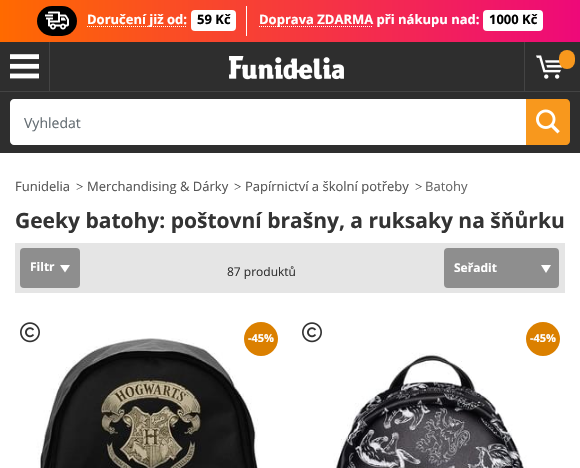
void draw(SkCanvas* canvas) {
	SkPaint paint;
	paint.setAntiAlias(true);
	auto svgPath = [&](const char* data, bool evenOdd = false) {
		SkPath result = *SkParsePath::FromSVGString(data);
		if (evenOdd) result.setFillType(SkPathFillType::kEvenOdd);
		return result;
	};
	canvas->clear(0xffffffff);
	paint.setColor(0xff2e2e2e);
	canvas->drawRect(SkRect::MakeXYWH(0, 42, 580, 111), paint);
	{
		const SkColor colors[] = {0xffff6a00, 0xffee0979};
		const float stops[] = {0, 1};
		const SkPoint ends[] = {{0, 21}, {580, 21}};
		paint.setShader(SkGradientShader::MakeLinear(ends, colors, stops, 2, SkTileMode::kClamp));
		paint.setAlpha(255);
	}
	canvas->drawRect(SkRect::MakeXYWH(0, 0, 580, 42), paint);
	paint.setShader(nullptr);
	paint.setColor(0xffffffff);
	canvas->drawRect(SkRect::MakeXYWH(246, 6, 1, 30), paint);
	paint.setColor(0xff000000);
	canvas->drawRoundRect(SkRect::MakeXYWH(37, 6, 40, 30), 15, 15, paint);
	canvas->drawImageRect(SkImages::DeferredFromEncodedData(SkData::MakeFromFileName("img1.png")), SkRect::MakeXYWH(45, 11, 24, 19), SkSamplingOptions());
	paint.setStroke(true);
	paint.setStrokeWidth(1);
	paint.setColor(0xffffffff);
	paint.setPathEffect(SkDashPathEffect::Make({{1, 1}}, 0));
	canvas->drawPath(svgPath("M87 26.5H187"), paint);
	paint.setPathEffect(nullptr);
	SkFont f1(fontMgr->matchFamilyStyle("Open Sans", SkFontStyle::Bold()), 13);
	f1.setSubpixel(true);
	paint.setStroke(false);
	canvas->drawString("Doručení již od:", 87, 24, f1, paint);
	canvas->drawRoundRect(SkRect::MakeXYWH(191, 10, 45, 21), 4, 4, paint);
	paint.setColor(0xff000000);
	canvas->drawString("59 Kč", 197, 24, f1, paint);
	paint.setStroke(true);
	paint.setColor(0xffffffff);
	paint.setPathEffect(SkDashPathEffect::Make({{1, 1}}, 0));
	canvas->drawPath(svgPath("M259 26.5H373"), paint);
	paint.setPathEffect(nullptr);
	paint.setStroke(false);
	canvas->drawString("Doprava ZDARMA při nákupu nad:", 259, 24, f1, paint);
	canvas->drawRoundRect(SkRect::MakeXYWH(483, 10, 60, 21), 4, 4, paint);
	paint.setColor(0xff000000);
	canvas->drawString("1000 Kč", 489, 24, f1, paint);
	paint.setColor(0xff444444);
	canvas->drawRect(SkRect::MakeXYWH(49, 42, 1, 49), paint);
	canvas->drawImageRect(SkImages::DeferredFromEncodedData(SkData::MakeFromFileName("img2.png")), SkRect::MakeXYWH(10, 54, 29, 25), SkSamplingOptions());
	canvas->drawImageRect(SkImages::DeferredFromEncodedData(SkData::MakeFromFileName("img3.png")), SkRect::MakeXYWH(229, 56, 115, 24), SkSamplingOptions());
	canvas->drawRect(SkRect::MakeXYWH(524, 42, 1, 49), paint);
	canvas->drawImageRect(SkImages::DeferredFromEncodedData(SkData::MakeFromFileName("img4.png")), SkRect::MakeXYWH(536, 55, 27, 24), SkSamplingOptions());
	paint.setColor(0xfff8981d);
	canvas->drawRoundRect(SkRect::MakeXYWH(559, 50, 16, 19), 8, 8, paint);
	paint.setColor(0xff444444);
	canvas->drawRect(SkRect::MakeXYWH(0, 91, 580, 1), paint);
	paint.setColor(0xffffffff);
	canvas->drawPath(svgPath("M14 100H525V144H14C12.5 144 11 142.5 11 141V103C11 101.5 12.5 100 14 100Z"), paint);
	paint.setStroke(true);
	paint.setStrokeWidth(2);
	canvas->drawPath(svgPath("M14 100H525V144H14C12.5 144 11 142.5 11 141V103C11 101.5 12.5 100 14 100Z"), paint);
	SkFont f2(fontMgr->matchFamilyStyle("Open Sans", SkFontStyle::Normal()), 14);
	f2.setSubpixel(true);
	paint.setStroke(false);
	paint.setColor(0xff636c72);
	canvas->drawString("Vyhledat", 24, 128, f2, paint);
	paint.setColor(0xfff8981d);
	canvas->drawPath(svgPath("M526 99H566C568 99 570 101 570 103V141C570 143 568 145 566 145H526Z"), paint);
	canvas->drawImageRect(SkImages::DeferredFromEncodedData(SkData::MakeFromFileName("img5.png")), SkRect::MakeXYWH(536, 109, 24, 25), SkSamplingOptions());
	SkFont f3(fontMgr->matchFamilyStyle("Open Sans", SkFontStyle::Normal()), 13);
	f3.setSubpixel(true);
	paint.setColor(0xff555555);
	canvas->drawString("Funidelia", 15, 191, f3, paint);
	SkFont f4(fontMgr->matchFamilyStyle("Liberation Serif", SkFontStyle::Normal()), 13);
	f4.setSubpixel(true);
	paint.setColor(0xff333333);
	canvas->drawString(">", 76, 191, f4, paint);
	paint.setColor(0xff555555);
	canvas->drawString("Merchandising & Dárky", 87, 191, f3, paint);
	paint.setColor(0xff333333);
	canvas->drawString(">", 234, 191, f4, paint);
	paint.setColor(0xff555555);
	canvas->drawString("Papírnictví a školní potřeby", 245, 191, f3, paint);
	paint.setColor(0xff333333);
	canvas->drawString(">", 415, 191, f4, paint);
	paint.setColor(0xff666666);
	canvas->drawString("Batohy", 425, 191, f3, paint);
	SkFont f5(fontMgr->matchFamilyStyle("Open Sans", SkFontStyle::Bold()), 21);
	f5.setSubpixel(true);
	paint.setColor(0xff333333);
	canvas->drawString("Geeky batohy: poštovní brašny, a ruksaky na šňůrku", 15, 228, f5, paint);
	paint.setColor(0xffe5e5e5);
	canvas->drawRect(SkRect::MakeXYWH(15, 243, 550, 50), paint);
	paint.setColor(0xff8e8e8e);
	canvas->drawRoundRect(SkRect::MakeXYWH(20, 248, 60, 40), 4, 4, paint);
	SkFont f6(fontMgr->matchFamilyStyle("Open Sans", SkFontStyle::Bold()), 12);
	f6.setSubpixel(true);
	paint.setColor(0xffffffff);
	canvas->drawString("Filtr", 30, 271, f6, paint);
	canvas->drawPath(svgPath("M65 272.5L60 265H70Z"), paint);
	SkFont f7(fontMgr->matchFamilyStyle("Open Sans", SkFontStyle::Normal()), 12);
	f7.setSubpixel(true);
	paint.setColor(0xff333333);
	canvas->drawString("87 produktů", 227, 276, f7, paint);
	paint.setColor(0xff8e8e8e);
	canvas->drawRoundRect(SkRect::MakeXYWH(445, 249, 113, 38), 3, 3, paint);
	paint.setStroke(true);
	canvas->drawRoundRect(SkRect::MakeXYWH(445, 249, 113, 38), 3, 3, paint);
	paint.setStroke(false);
	paint.setColor(0xffffffff);
	canvas->drawString("Seřadit", 454, 272, f6, paint);
	canvas->drawPath(svgPath("M541 265H551L546 273Z"), paint);
	canvas->drawImageRect(SkImages::DeferredFromEncodedData(SkData::MakeFromFileName("img6.png")), SkRect::MakeXYWH(15, 317, 268, 151), SkSamplingOptions());
	canvas->drawImageRect(SkImages::DeferredFromEncodedData(SkData::MakeFromFileName("img7.png")), SkRect::MakeXYWH(20, 322, 20, 21), SkSamplingOptions());
	paint.setColor(0xffdb8000);
	canvas->drawCircle(261, 339, 17, paint);
	SkFont f8(fontMgr->matchFamilyStyle("Open Sans", SkFontStyle::Bold()), 11);
	f8.setSubpixel(true);
	paint.setColor(0xffffffff);
	canvas->drawString("-45%", 248, 342, f8, paint);
	canvas->drawImageRect(SkImages::DeferredFromEncodedData(SkData::MakeFromFileName("img8.png")), SkRect::MakeXYWH(297, 317, 268, 151), SkSamplingOptions());
	canvas->drawImageRect(SkImages::DeferredFromEncodedData(SkData::MakeFromFileName("img7.png")), SkRect::MakeXYWH(302, 322, 20, 21), SkSamplingOptions());
	paint.setColor(0xffdb8000);
	canvas->drawCircle(543, 339, 17, paint);
	paint.setColor(0xffffffff);
	canvas->drawString("-45%", 530, 342, f8, paint);
}
